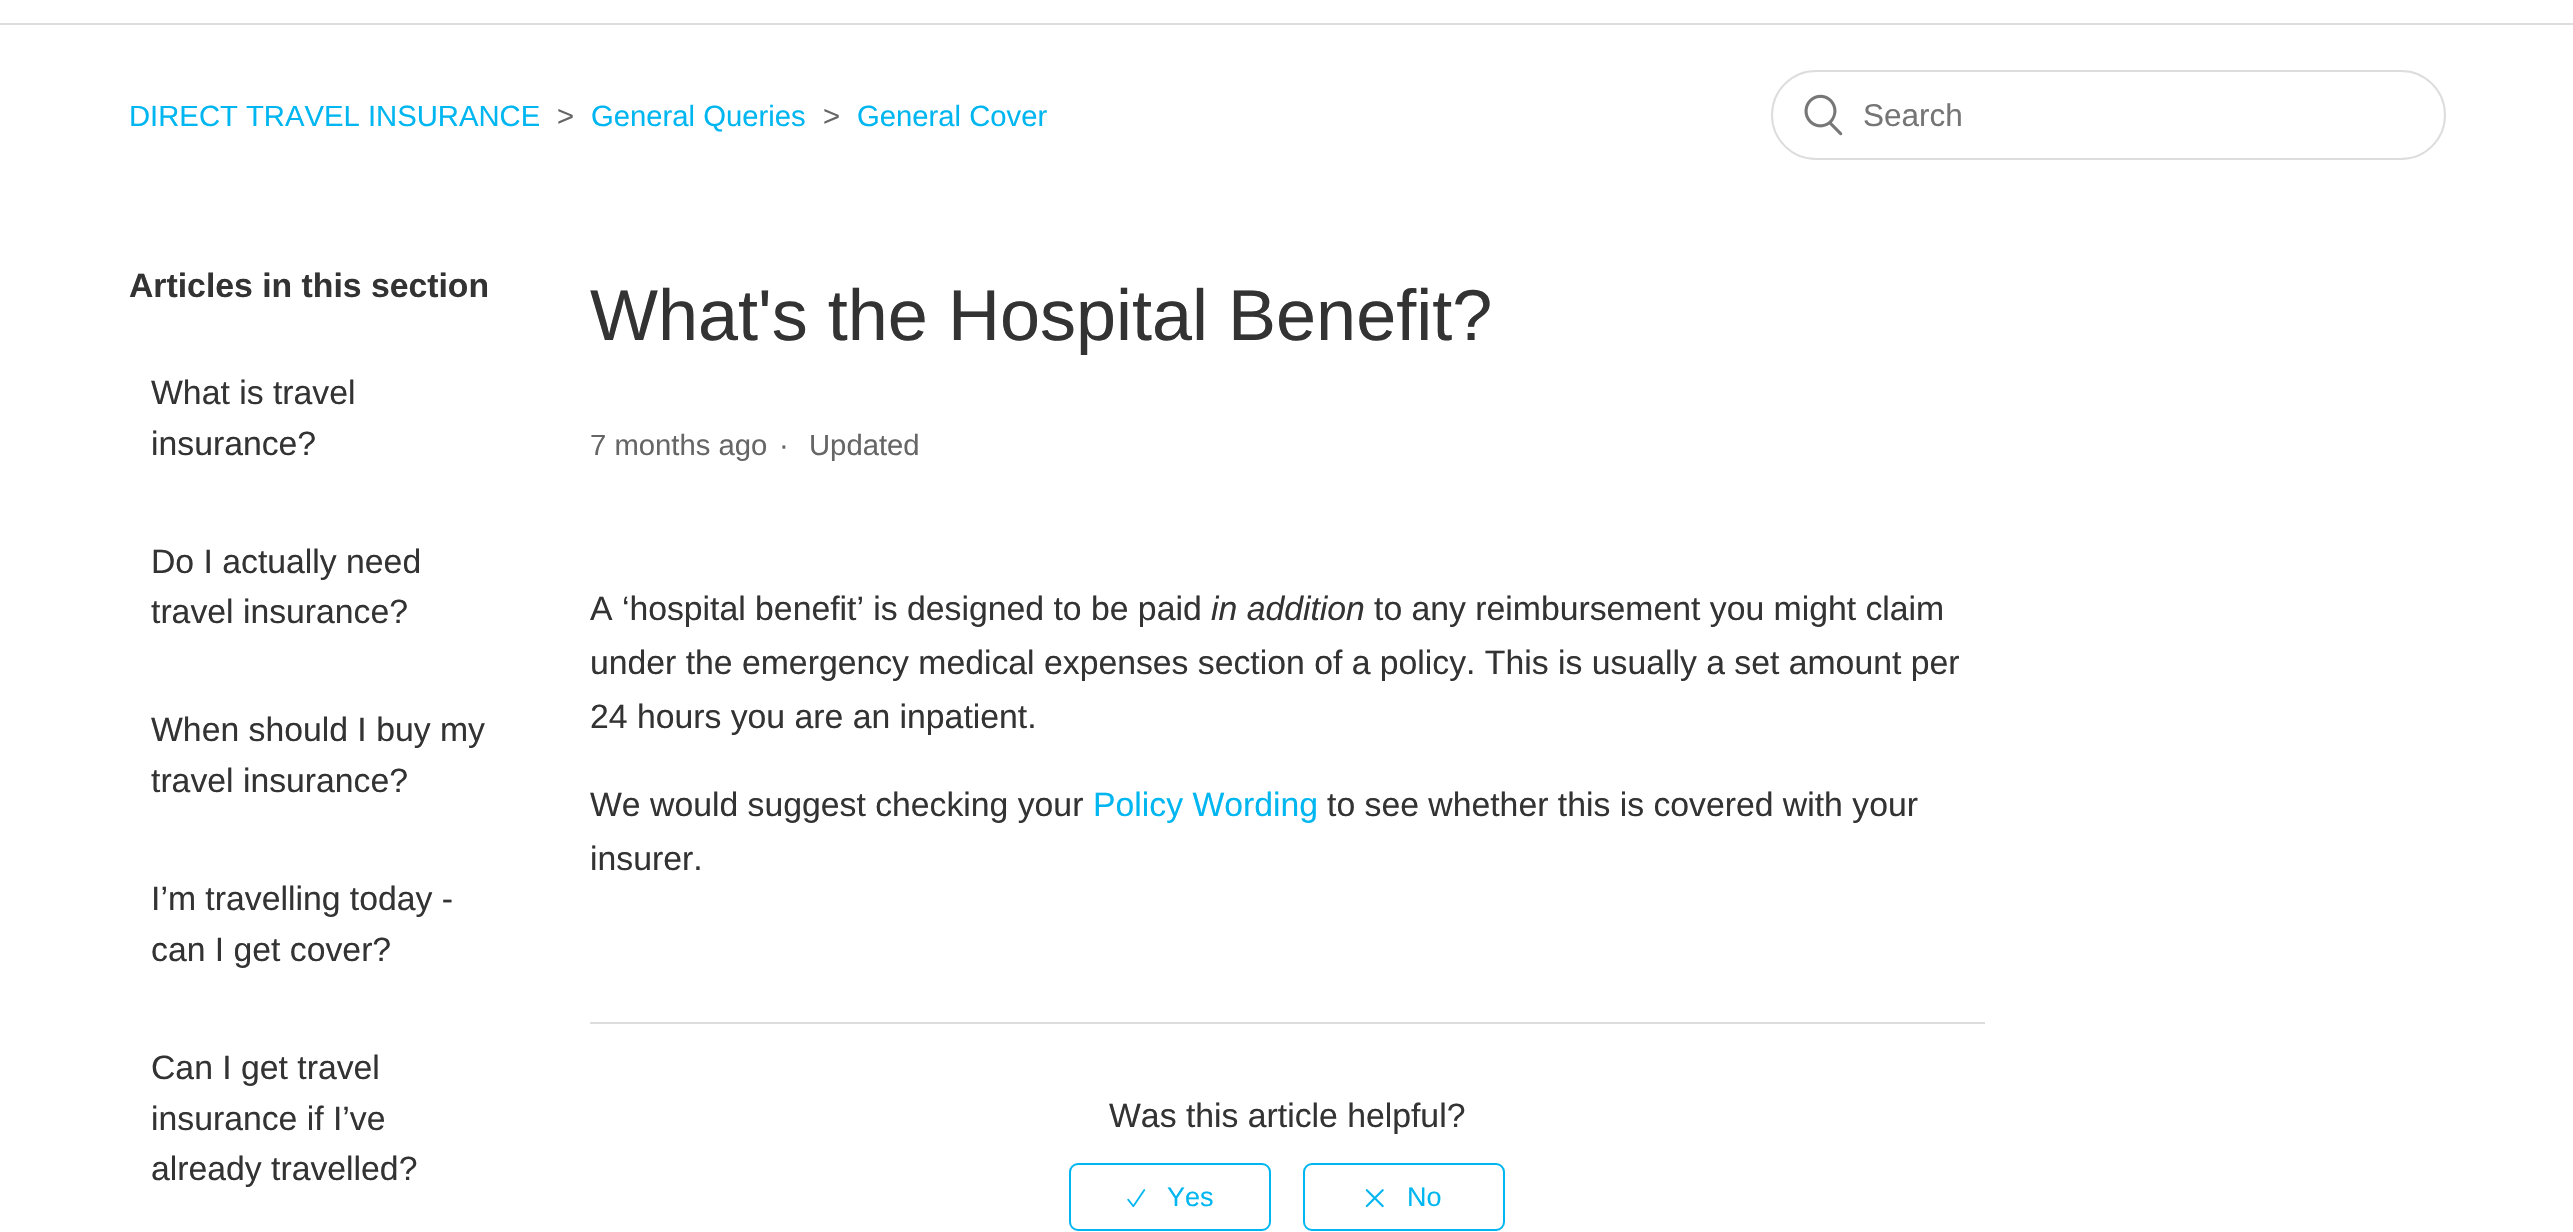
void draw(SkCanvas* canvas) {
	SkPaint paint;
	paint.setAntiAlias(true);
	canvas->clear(0xffffffff);
	paint.setColor(0xffdddddd);
	canvas->drawRect(SkRect::MakeXYWH(0, 23, 2573, 2), paint);
	SkFont f1(fontMgr->matchFamilyStyle("Liberation Sans", SkFontStyle::Normal()), 29.25);
	f1.setSubpixel(true);
	paint.setColor(0xff00b6f0);
	canvas->drawString("DIRECT TRAVEL INSURANCE", 129, 126, f1, paint);
	paint.setColor(0xff666666);
	canvas->drawString(">", 557, 126, f1, paint);
	paint.setColor(0xff00b6f0);
	canvas->drawString("General Queries", 591, 126, f1, paint);
	paint.setColor(0xff666666);
	canvas->drawString(">", 823, 126, f1, paint);
	paint.setColor(0xff00b6f0);
	canvas->drawString("General Cover", 857, 126, f1, paint);
	paint.setStroke(true);
	paint.setStrokeWidth(2);
	paint.setColor(0xffdddddd);
	canvas->drawRoundRect(SkRect::MakeXYWH(1772, 71, 673, 88), 44, 44, paint);
	canvas->drawImageRect(SkImages::DeferredFromEncodedData(SkData::MakeFromFileName("img1.png")), SkRect::MakeXYWH(1804, 94, 39, 42), SkSamplingOptions());
	SkFont f2(fontMgr->matchFamilyStyle("Liberation Sans", SkFontStyle::Normal()), 31.5);
	f2.setSubpixel(true);
	paint.setStroke(false);
	paint.setColor(0xff757575);
	canvas->drawString("Search", 1863, 126, f2, paint);
	SkFont f3(fontMgr->matchFamilyStyle("Liberation Sans", SkFontStyle::Bold()), 33.75);
	f3.setSubpixel(true);
	paint.setColor(0xff333333);
	canvas->drawString("Articles in this section", 129, 297, f3, paint);
	SkFont f4(fontMgr->matchFamilyStyle("Liberation Sans", SkFontStyle::Normal()), 33.75);
	f4.setSubpixel(true);
	canvas->drawString("What is travel", 151, 404, f4, paint);
	canvas->drawString("insurance?", 151, 455, f4, paint);
	canvas->drawString("Do I actually need", 151, 573, f4, paint);
	canvas->drawString("travel insurance?", 151, 623, f4, paint);
	canvas->drawString("When should I buy my", 151, 741, f4, paint);
	canvas->drawString("travel insurance?", 151, 792, f4, paint);
	canvas->drawString("I’m travelling today -", 151, 910, f4, paint);
	canvas->drawString("can I get cover?", 151, 961, f4, paint);
	canvas->drawString("Can I get travel", 151, 1079, f4, paint);
	canvas->drawString("insurance if I’ve", 151, 1130, f4, paint);
	canvas->drawString("already travelled?", 151, 1180, f4, paint);
	SkFont f5(fontMgr->matchFamilyStyle("Liberation Sans", SkFontStyle::Normal()), 72);
	f5.setSubpixel(true);
	canvas->drawString("What's the Hospital Benefit?", 590, 340, f5, paint);
	paint.setColor(0xff666666);
	canvas->drawString("7 months ago", 590, 455, f1, paint);
	canvas->drawString("·", 779, 455, f1, paint);
	canvas->drawString("Updated", 809, 455, f1, paint);
	paint.setColor(0xff333333);
	canvas->drawString("A ‘hospital benefit’ is designed to be paid", 590, 620, f4, paint);
	SkFont f6(fontMgr->matchFamilyStyle("Liberation Sans", SkFontStyle::Italic()), 33.75);
	f6.setSubpixel(true);
	canvas->drawString("in addition", 1211, 620, f6, paint);
	canvas->drawString("to any reimbursement you might claim", 1374, 620, f4, paint);
	canvas->drawString("under the emergency medical expenses section of a policy. This is usually a set amount per", 590, 674, f4, paint);
	canvas->drawString("24 hours you are an inpatient.", 590, 728, f4, paint);
	canvas->drawString("We would suggest checking your", 590, 816, f4, paint);
	paint.setColor(0xff00b6f0);
	canvas->drawString("Policy Wording", 1093, 816, f4, paint);
	paint.setColor(0xff333333);
	canvas->drawString("to see whether this is covered with your", 1327, 816, f4, paint);
	canvas->drawString("insurer.", 590, 870, f4, paint);
	paint.setColor(0xffdddddd);
	canvas->drawRect(SkRect::MakeXYWH(590, 1022, 1395, 2), paint);
	paint.setColor(0xff333333);
	canvas->drawString("Was this article helpful?", 1109, 1127, f4, paint);
	paint.setStroke(true);
	paint.setColor(0xff00b6f0);
	canvas->drawRoundRect(SkRect::MakeXYWH(1070, 1164, 200, 66), 8, 8, paint);
	canvas->drawImageRect(SkImages::DeferredFromEncodedData(SkData::MakeFromFileName("img2.png")), SkRect::MakeXYWH(1127, 1189, 19, 19), SkSamplingOptions());
	SkFont f7(fontMgr->matchFamilyStyle("Liberation Sans", SkFontStyle::Normal()), 27);
	f7.setSubpixel(true);
	paint.setStroke(false);
	canvas->drawString("Yes", 1167, 1206, f7, paint);
	paint.setStroke(true);
	canvas->drawRoundRect(SkRect::MakeXYWH(1304, 1164, 200, 66), 8, 8, paint);
	canvas->drawImageRect(SkImages::DeferredFromEncodedData(SkData::MakeFromFileName("img3.png")), SkRect::MakeXYWH(1365, 1189, 19, 19), SkSamplingOptions());
	paint.setStroke(false);
	canvas->drawString("No", 1407, 1206, f7, paint);
}
